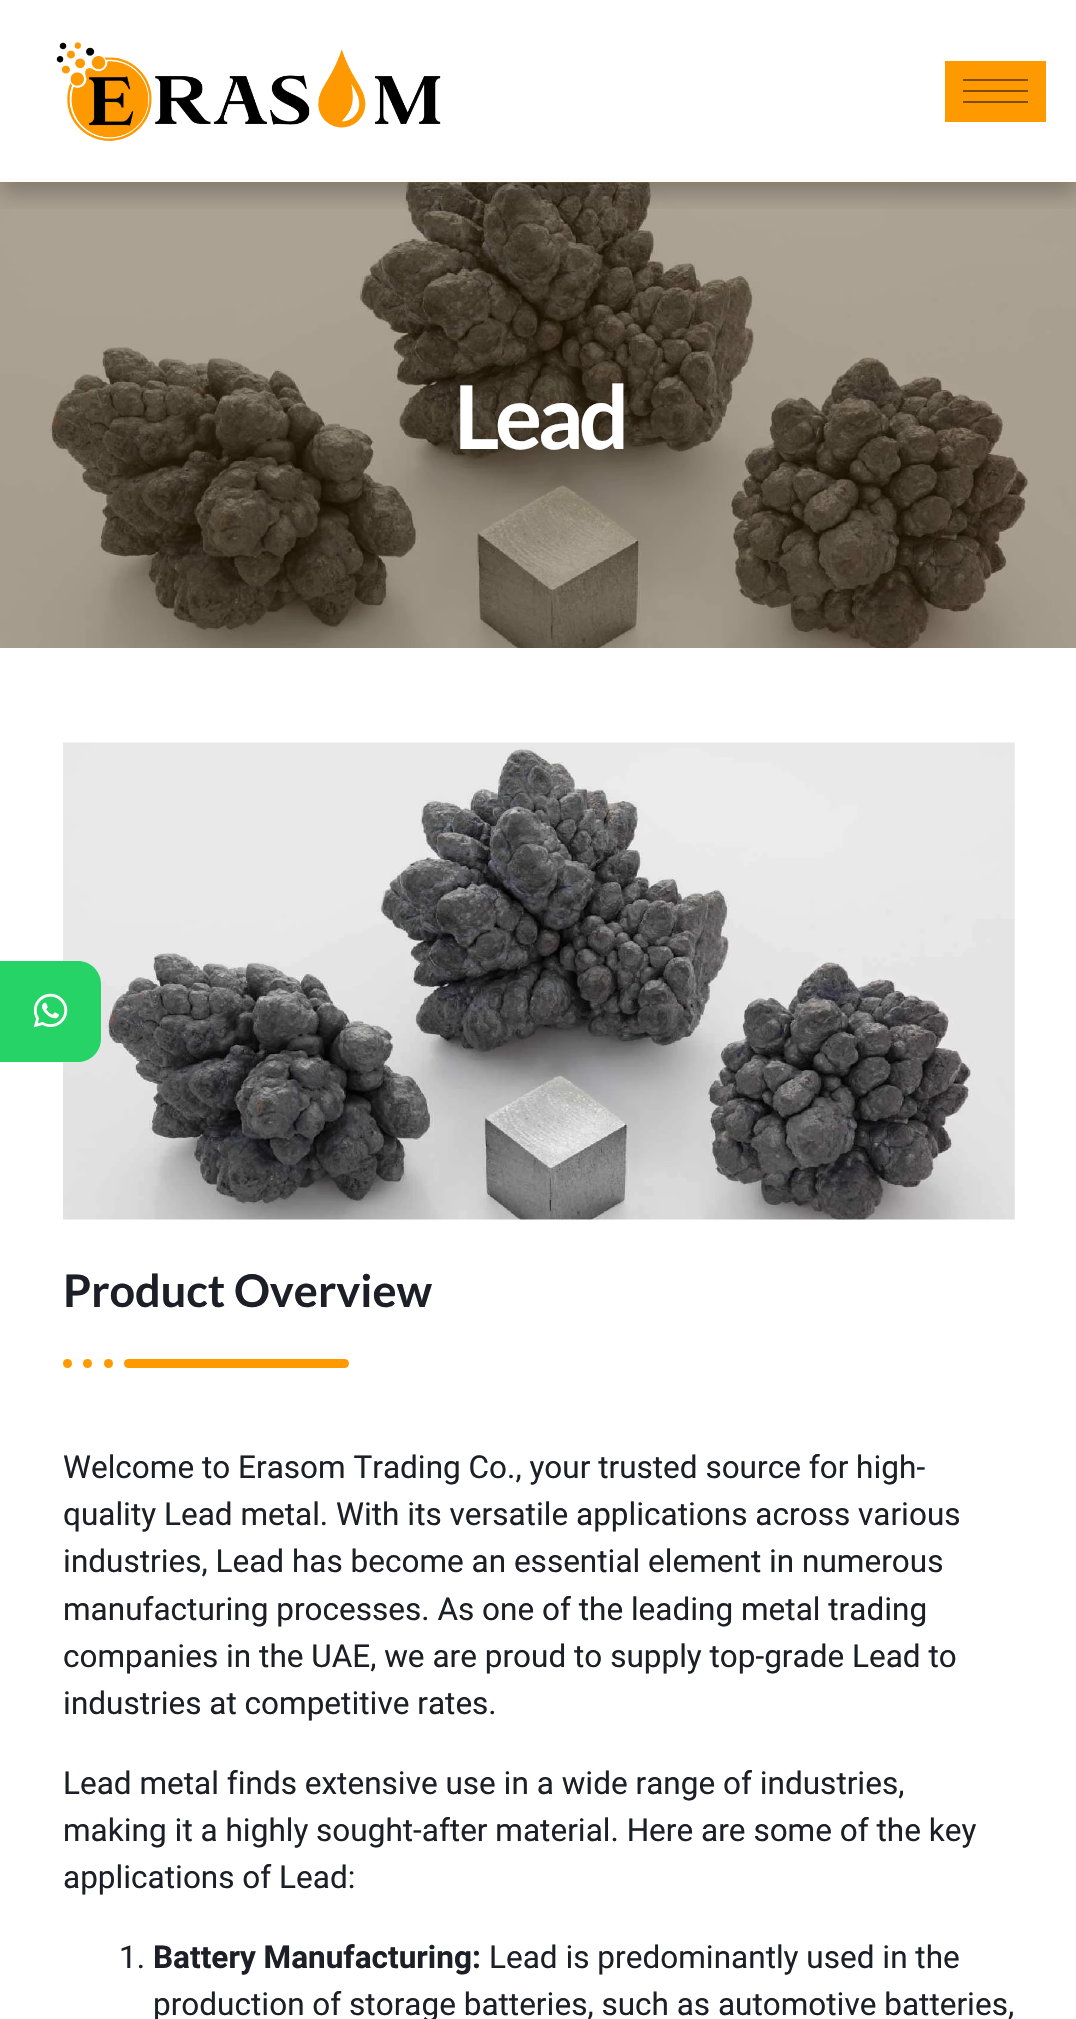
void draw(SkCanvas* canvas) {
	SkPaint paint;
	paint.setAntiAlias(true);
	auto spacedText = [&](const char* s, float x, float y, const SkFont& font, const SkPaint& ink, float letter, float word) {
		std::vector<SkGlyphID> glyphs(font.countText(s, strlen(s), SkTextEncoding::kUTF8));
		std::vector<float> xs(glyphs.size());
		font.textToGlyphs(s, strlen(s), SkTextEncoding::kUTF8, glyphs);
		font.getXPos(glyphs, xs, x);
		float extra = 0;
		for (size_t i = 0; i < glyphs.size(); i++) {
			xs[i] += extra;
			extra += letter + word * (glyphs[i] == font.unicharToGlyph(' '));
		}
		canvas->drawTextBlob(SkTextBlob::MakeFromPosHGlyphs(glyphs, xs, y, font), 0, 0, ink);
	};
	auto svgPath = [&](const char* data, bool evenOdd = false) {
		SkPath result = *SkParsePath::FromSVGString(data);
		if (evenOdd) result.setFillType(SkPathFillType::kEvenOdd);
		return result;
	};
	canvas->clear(0xffffffff);
	paint.setColor(0xffff9900);
	canvas->drawRect(SkRect::MakeXYWH(0, 182, 1076, 466), paint);
	canvas->drawImageRect(SkImages::DeferredFromEncodedData(SkData::MakeFromFileName("img3.png")), SkRect::MakeXYWH(0, 182, 1076, 466), SkSamplingOptions());
	canvas->save();
	canvas->clipRect(SkRect::MakeXYWH(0, 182, 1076, 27));
	paint.setColor(0x40000000);
	paint.setMaskFilter(SkMaskFilter::MakeBlur(kNormal_SkBlurStyle, 11));
	canvas->drawRect(SkRect::MakeXYWH(0, 11, 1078, 183), paint);
	paint.setMaskFilter(nullptr);
	canvas->restore();
	canvas->drawImageRect(SkImages::DeferredFromEncodedData(SkData::MakeFromFileName("img1.png")), SkRect::MakeXYWH(56, 42, 385, 99), SkSamplingOptions());
	paint.setColor(0xffff9900);
	canvas->drawRect(SkRect::MakeXYWH(945, 61, 101, 61), paint);
	paint.setColor(0xff804d00);
	canvas->drawRect(SkRect::MakeXYWH(963, 79, 65, 2), paint);
	canvas->drawRect(SkRect::MakeXYWH(963, 90, 65, 2), paint);
	canvas->drawRect(SkRect::MakeXYWH(963, 101, 65, 2), paint);
	canvas->drawImageRect(SkImages::DeferredFromEncodedData(SkData::MakeFromFileName("img4.png")), SkRect::MakeXYWH(63, 742, 952, 478), SkSamplingOptions());
	paint.setColor(0xff26d367);
	canvas->drawPath(svgPath("M0 961H78C90.5 961 101 971.5 101 984V1039C101 1051.5 90.5 1062 78 1062H0Z"), paint);
	canvas->drawImageRect(SkImages::DeferredFromEncodedData(SkData::MakeFromFileName("img2.png")), SkRect::MakeXYWH(33, 993, 35, 35), SkSamplingOptions());
	SkFont f1(fontMgr->matchFamilyStyle("Lato", SkFontStyle::Bold()), 88);
	f1.setSubpixel(true);
	paint.setColor(0xffffffff);
	spacedText("Lead", 454, 449, f1, paint, -4.5, 0);
	SkFont f2(fontMgr->matchFamilyStyle("Lato", SkFontStyle::Bold()), 45);
	f2.setSubpixel(true);
	paint.setColor(0xff1c1f26);
	canvas->drawString("Product Overview", 63, 1307, f2, paint);
	paint.setColor(0xffff9900);
	canvas->drawRoundRect(SkRect::MakeXYWH(124, 1359, 225, 9), 4.5, 4.5, paint);
	canvas->drawCircle(108.5, 1363.5, 4.5, paint);
	canvas->drawCircle(87.5, 1363.5, 4.5, paint);
	canvas->drawCircle(67.5, 1363.5, 4.5, paint);
	SkFont f3(fontMgr->matchFamilyStyle("Heebo", SkFontStyle::Normal()), 31.5);
	f3.setSubpixel(true);
	paint.setColor(0xff1c1f26);
	canvas->drawString("Welcome to Erasom Trading Co., your trusted source for high-", 63, 1478, f3, paint);
	canvas->drawString("quality Lead metal. With its versatile applications across various", 63, 1525, f3, paint);
	canvas->drawString("industries, Lead has become an essential element in numerous", 63, 1572, f3, paint);
	canvas->drawString("manufacturing processes. As one of the leading metal trading", 63, 1620, f3, paint);
	canvas->drawString("companies in the UAE, we are proud to supply top-grade Lead to", 63, 1667, f3, paint);
	canvas->drawString("industries at competitive rates.", 63, 1714, f3, paint);
	canvas->drawString("Lead metal finds extensive use in a wide range of industries,", 63, 1794, f3, paint);
	canvas->drawString("making it a highly sought-after material. Here are some of the key", 63, 1841, f3, paint);
	canvas->drawString("applications of Lead:", 63, 1888, f3, paint);
	canvas->drawString("1.", 119, 1968, f3, paint);
	SkFont f4(fontMgr->matchFamilyStyle("Heebo", SkFontStyle::Bold()), 31.5);
	f4.setSubpixel(true);
	canvas->drawString("Battery Manufacturing:", 153, 1968, f4, paint);
	canvas->drawString("Lead is predominantly used in the", 489, 1968, f3, paint);
	canvas->drawString("production of storage batteries, such as automotive batteries,", 153, 2015, f3, paint);
}
